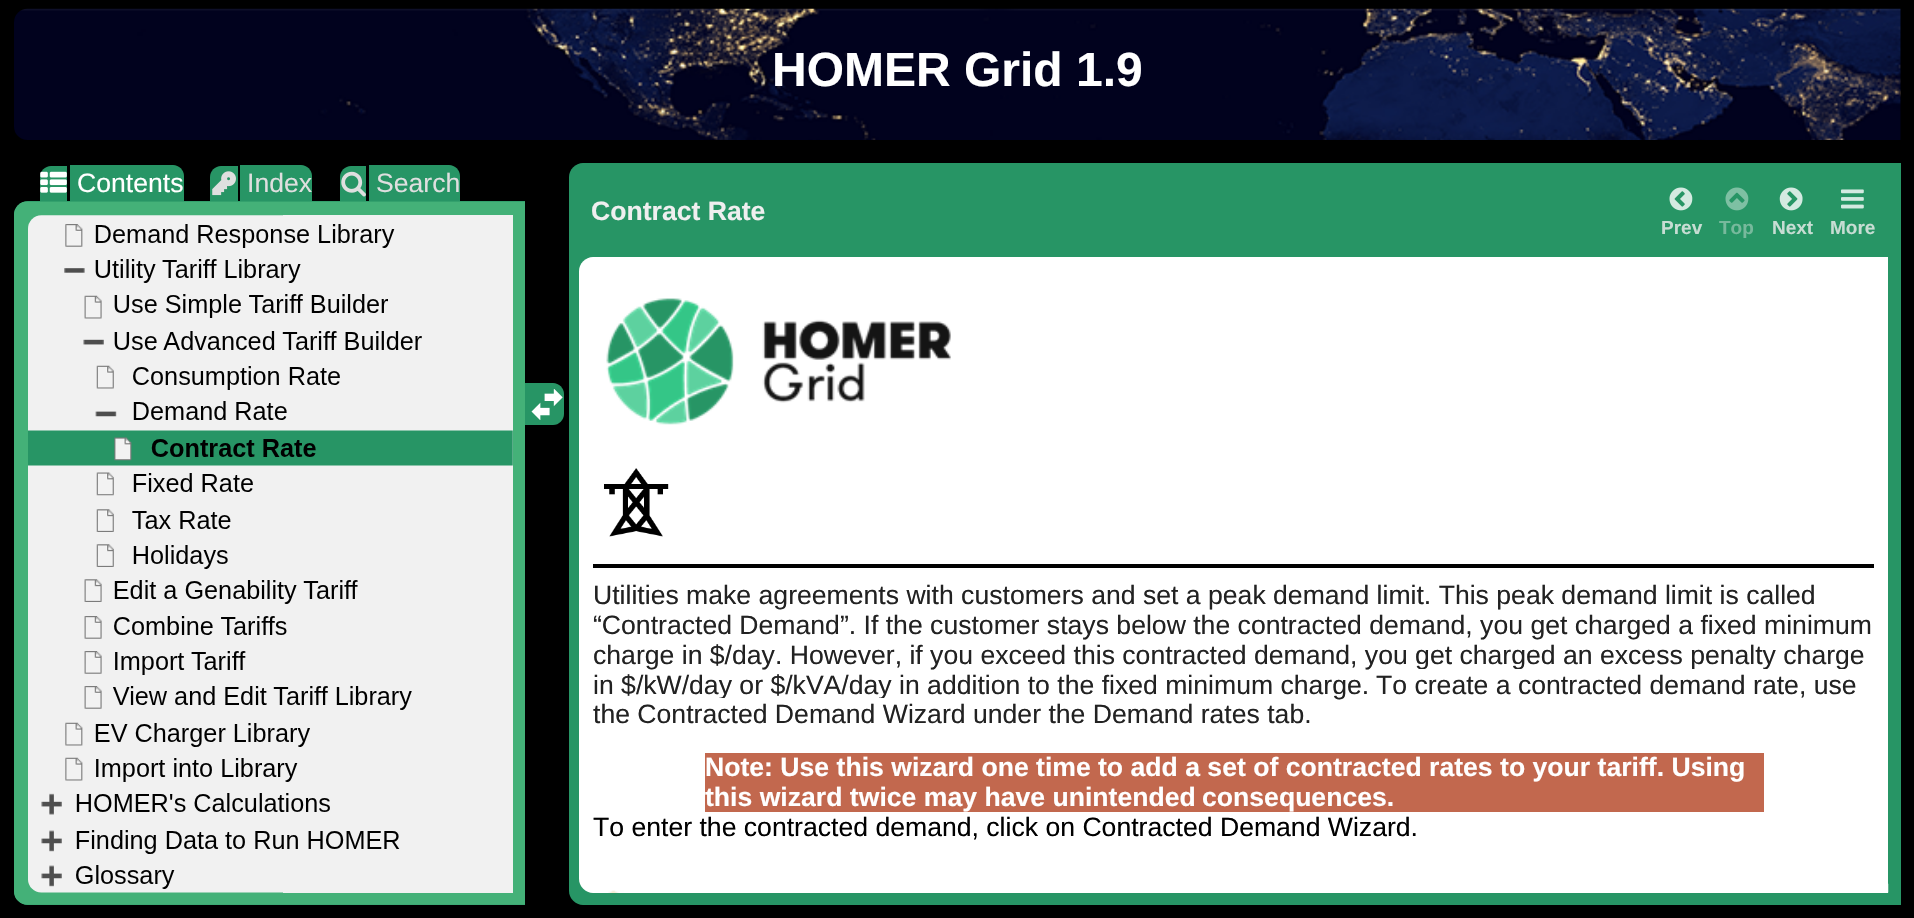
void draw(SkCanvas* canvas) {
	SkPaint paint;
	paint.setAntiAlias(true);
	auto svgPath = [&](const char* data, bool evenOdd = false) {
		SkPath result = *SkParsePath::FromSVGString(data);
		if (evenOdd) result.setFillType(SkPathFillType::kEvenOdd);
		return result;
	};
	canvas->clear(0xff000000);
	canvas->drawImageRect(SkImages::DeferredFromEncodedData(SkData::MakeFromFileName("img1.png")), SkRect::MakeXYWH(14, 8, 1887, 132), SkSamplingOptions());
	SkFont f1(fontMgr->matchFamilyStyle("Liberation Sans", SkFontStyle::Bold()), 48);
	f1.setSubpixel(true);
	paint.setColor(0xffffffff);
	canvas->drawString("HOMER Grid 1.9", 772, 86, f1, paint);
	paint.setColor(0xff279565);
	canvas->drawPath(svgPath("M51 166H67V201H40V177C40 171 45 166 51 166Z"), paint);
	canvas->drawPath(svgPath("M70 165H173C179 165 184 170 184 176V203H70Z"), paint);
	canvas->drawImageRect(SkImages::DeferredFromEncodedData(SkData::MakeFromFileName("img2.png")), SkRect::MakeXYWH(40, 171, 27, 22), SkSamplingOptions());
	SkFont f2(fontMgr->matchFamilyStyle("Liberation Sans", SkFontStyle::Normal()), 26.6);
	f2.setSubpixel(true);
	paint.setColor(0xffffffff);
	canvas->drawString("Contents", 77, 192, f2, paint);
	paint.setColor(0xff279565);
	canvas->drawPath(svgPath("M221 166H238V201H210V177C210 171 215 166 221 166Z"), paint);
	canvas->drawPath(svgPath("M240 165H301C307 165 312 170 312 176V203H240Z"), paint);
	canvas->drawImageRect(SkImages::DeferredFromEncodedData(SkData::MakeFromFileName("img3.png")), SkRect::MakeXYWH(212, 171, 24, 25), SkSamplingOptions());
	paint.setColor(0xffdfdfdf);
	canvas->drawString("Index", 247, 192, f2, paint);
	paint.setColor(0xff279565);
	canvas->drawPath(svgPath("M351 166H366V201H340V177C340 171 345 166 351 166Z"), paint);
	canvas->drawPath(svgPath("M369 165H449C455 165 460 170 460 176V203H369Z"), paint);
	canvas->drawImageRect(SkImages::DeferredFromEncodedData(SkData::MakeFromFileName("img4.png")), SkRect::MakeXYWH(341, 171, 25, 26), SkSamplingOptions());
	paint.setColor(0xffdfdfdf);
	canvas->drawString("Search", 376, 192, f2, paint);
	paint.setColor(0xff279565);
	canvas->drawPath(svgPath("M28 201H525V905H28C20.5 905 14 898.5 14 891V215C14 207.5 20.5 201 28 201Z"), paint);
	canvas->drawImageRect(SkImages::DeferredFromEncodedData(SkData::MakeFromFileName("img5.png")), SkRect::MakeXYWH(14, 201, 511, 704), SkSamplingOptions());
	canvas->drawPath(svgPath("M525 383H553C559 383 564 388 564 394V414C564 420 559 425 553 425H525Z"), paint);
	canvas->drawImageRect(SkImages::DeferredFromEncodedData(SkData::MakeFromFileName("img6.png")), SkRect::MakeXYWH(531, 389, 32, 31), SkSamplingOptions());
	canvas->drawPath(svgPath("M583 163H1901V905H583C575.5 905 569 898.5 569 891V177C569 169.5 575.5 163 583 163Z"), paint);
	SkFont f3(fontMgr->matchFamilyStyle("Liberation Sans", SkFontStyle::Bold()), 26.6);
	f3.setSubpixel(true);
	paint.setColor(0xffefefef);
	canvas->drawString("Contract Rate", 591, 220, f3, paint);
	canvas->drawImageRect(SkImages::DeferredFromEncodedData(SkData::MakeFromFileName("img7.png")), SkRect::MakeXYWH(1669, 187, 24, 24), SkSamplingOptions());
	SkFont f4(fontMgr->matchFamilyStyle("Liberation Sans", SkFontStyle::Bold()), 19);
	f4.setSubpixel(true);
	paint.setColor(0xffc7ddd3);
	canvas->drawString("Prev", 1661, 234, f4, paint);
	canvas->drawImageRect(SkImages::DeferredFromEncodedData(SkData::MakeFromFileName("img8.png")), SkRect::MakeXYWH(1725, 187, 24, 24), SkSamplingOptions());
	paint.setColor(0xff77b99c);
	canvas->drawString("Top", 1719, 234, f4, paint);
	canvas->drawImageRect(SkImages::DeferredFromEncodedData(SkData::MakeFromFileName("img9.png")), SkRect::MakeXYWH(1779, 187, 24, 24), SkSamplingOptions());
	paint.setColor(0xffc7ddd3);
	canvas->drawString("Next", 1772, 234, f4, paint);
	canvas->drawImageRect(SkImages::DeferredFromEncodedData(SkData::MakeFromFileName("img10.png")), SkRect::MakeXYWH(1841, 189, 23, 20), SkSamplingOptions());
	canvas->drawString("More", 1830, 234, f4, paint);
	paint.setColor(0xffffffff);
	canvas->drawPath(svgPath("M593 257H1888V893H593C585.5 893 579 886.5 579 879V271C579 263.5 585.5 257 593 257Z"), paint);
	canvas->drawImageRect(SkImages::DeferredFromEncodedData(SkData::MakeFromFileName("img11.png")), SkRect::MakeXYWH(606, 298, 345, 127), SkSamplingOptions());
	canvas->drawImageRect(SkImages::DeferredFromEncodedData(SkData::MakeFromFileName("img12.png")), SkRect::MakeXYWH(604, 468, 65, 69), SkSamplingOptions());
	paint.setColor(0xff000000);
	canvas->drawRect(SkRect::MakeXYWH(593, 564, 1281, 4), paint);
	paint.setColor(0xff222222);
	canvas->drawString("Utilities make agreements with customers and set a peak demand limit. This peak demand limit is called", 593, 604, f2, paint);
	canvas->drawString("“Contracted Demand”. If the customer stays below the contracted demand, you get charged a fixed minimum", 593, 634, f2, paint);
	canvas->drawString("charge in $/day. However, if you exceed this contracted demand, you get charged an excess penalty charge", 593, 664, f2, paint);
	canvas->drawString("in $/kW/day or $/kVA/day in addition to the fixed minimum charge.", 593, 694, f2, paint);
	canvas->drawString("To create a contracted demand rate, use", 1376, 694, f2, paint);
	paint.setColor(0xffffffff);
	canvas->drawRect(SkRect::MakeXYWH(1419, 669, 426, 1), paint);
	paint.setColor(0xff222222);
	canvas->drawString("the Contracted Demand Wizard under the Demand rates tab.", 593, 723, f2, paint);
	paint.setColor(0xffffffff);
	canvas->drawRect(SkRect::MakeXYWH(719, 698, 166, 2), paint);
	paint.setColor(0xffc2684e);
	canvas->drawRect(SkRect::MakeXYWH(705, 753, 1059, 59), paint);
	paint.setColor(0xffffffff);
	canvas->drawString("Note: Use this wizard one time", 705, 776, f3, paint);
	canvas->drawString("to add a set of contracted rates to your tariff. Using", 1098, 776, f3, paint);
	canvas->drawString("this wizard twice may have unintended", 705, 806, f3, paint);
	canvas->drawString("consequences.", 1202, 806, f3, paint);
	paint.setColor(0xff000000);
	canvas->drawString("To enter the contracted demand, click on Contracted Demand Wizard.", 593, 836, f2, paint);
	canvas->drawImageRect(SkImages::DeferredFromEncodedData(SkData::MakeFromFileName("img13.png")), SkRect::MakeXYWH(608, 883, 1281, 10), SkSamplingOptions());
}
